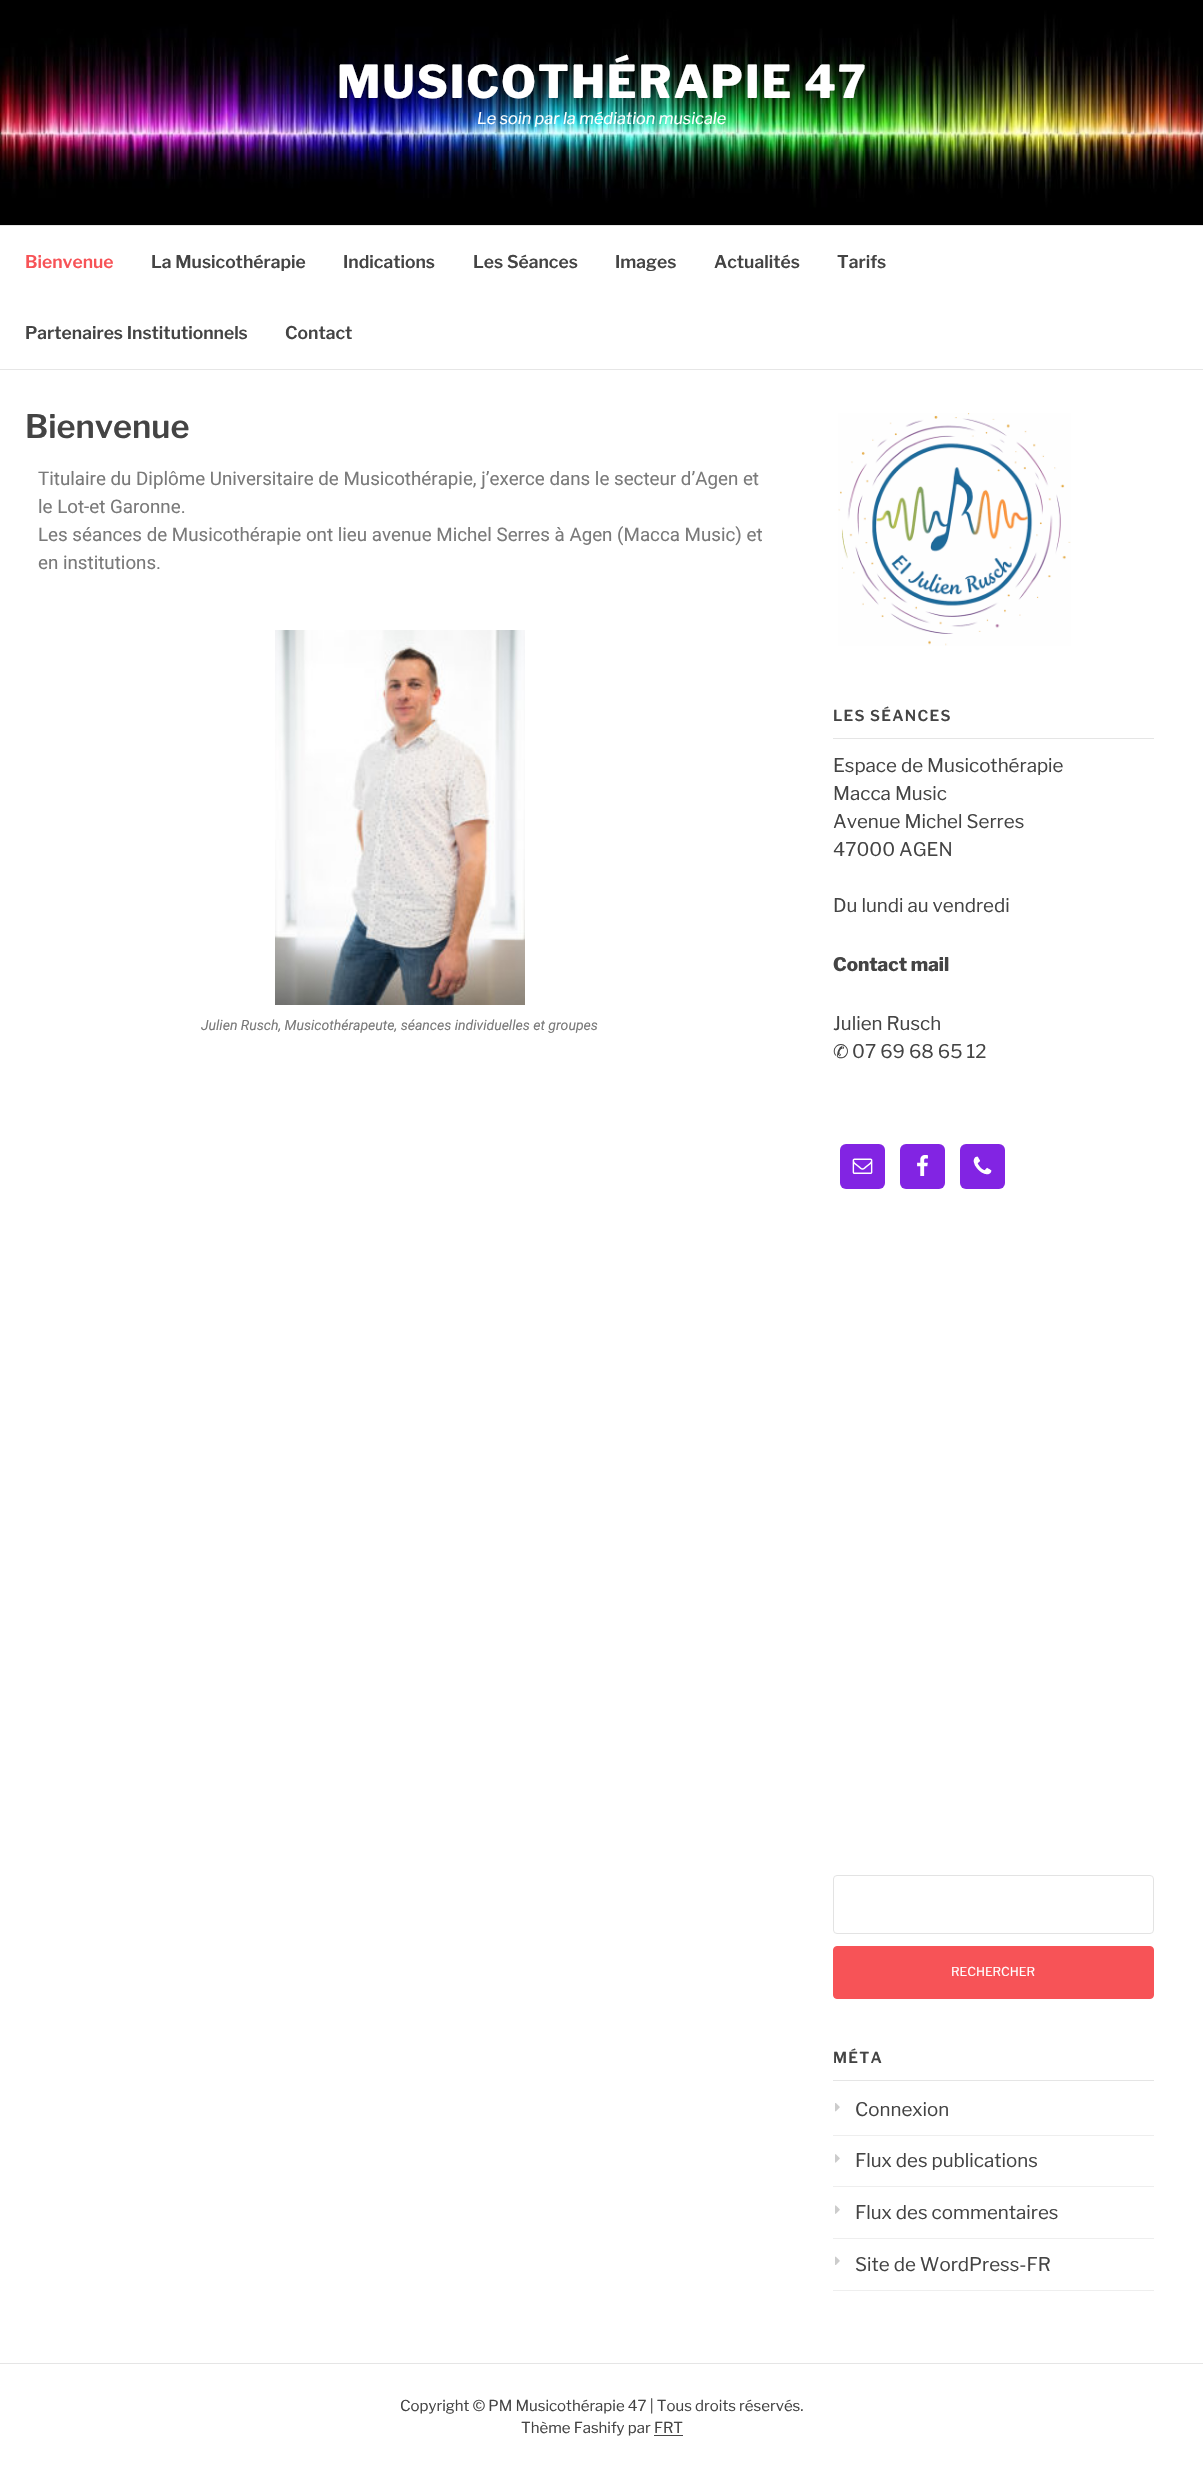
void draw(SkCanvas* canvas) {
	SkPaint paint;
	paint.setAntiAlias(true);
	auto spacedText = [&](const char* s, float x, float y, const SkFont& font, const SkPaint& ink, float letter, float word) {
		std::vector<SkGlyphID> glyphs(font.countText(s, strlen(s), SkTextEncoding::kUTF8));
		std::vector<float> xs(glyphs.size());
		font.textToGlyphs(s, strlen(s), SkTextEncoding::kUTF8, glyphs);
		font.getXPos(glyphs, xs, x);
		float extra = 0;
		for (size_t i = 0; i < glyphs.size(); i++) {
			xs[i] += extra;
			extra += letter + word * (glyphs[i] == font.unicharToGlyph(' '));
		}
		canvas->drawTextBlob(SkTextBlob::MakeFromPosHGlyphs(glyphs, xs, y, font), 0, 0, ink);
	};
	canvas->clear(0xffffffff);
	canvas->drawImageRect(SkImages::DeferredFromEncodedData(SkData::MakeFromFileName("img1.png")), SkRect::MakeXYWH(0, 0, 1203, 225), SkSamplingOptions());
	SkFont f1(fontMgr->matchFamilyStyle("Libre Franklin", SkFontStyle(800, SkFontStyle::kNormal_Width, SkFontStyle::kUpright_Slant)), 45);
	f1.setSubpixel(true);
	paint.setColor(0xffffffff);
	spacedText("MUSICOTHÉRAPIE 47", 337, 98, f1, paint, 1.9, 0);
	SkFont f2(fontMgr->matchFamilyStyle("Libre Franklin", SkFontStyle::Italic()), 16.25);
	f2.setSubpixel(true);
	canvas->drawString("Le soin par la médiation musicale", 477, 124, f2, paint);
	paint.setColor(0xffe6e6e6);
	canvas->drawRect(SkRect::MakeXYWH(0, 225, 1203, 1), paint);
	canvas->drawRect(SkRect::MakeXYWH(0, 369, 1203, 1), paint);
	SkFont f3(fontMgr->matchFamilyStyle("Libre Franklin", SkFontStyle(600, SkFontStyle::kNormal_Width, SkFontStyle::kUpright_Slant)), 17.5);
	f3.setSubpixel(true);
	paint.setColor(0xfff75357);
	canvas->drawString("Bienvenue", 25, 268, f3, paint);
	paint.setColor(0xff444444);
	canvas->drawString("La Musicothérapie", 151, 268, f3, paint);
	canvas->drawString("Indications", 343, 268, f3, paint);
	canvas->drawString("Les Séances", 473, 268, f3, paint);
	canvas->drawString("Images", 615, 268, f3, paint);
	canvas->drawString("Actualités", 714, 268, f3, paint);
	canvas->drawString("Tarifs", 837, 268, f3, paint);
	canvas->drawString("Partenaires Institutionnels", 25, 339, f3, paint);
	canvas->drawString("Contact", 285, 339, f3, paint);
	SkFont f4(fontMgr->matchFamilyStyle("Libre Franklin", SkFontStyle(600, SkFontStyle::kNormal_Width, SkFontStyle::kUpright_Slant)), 32.5);
	f4.setSubpixel(true);
	canvas->drawString("Bienvenue", 25, 438, f4, paint);
	SkFont f5(fontMgr->matchFamilyStyle("Roboto", SkFontStyle::Normal()), 18.75);
	f5.setSubpixel(true);
	paint.setColor(0xff7a7a7a);
	canvas->drawString("Titulaire du Diplôme Universitaire de Musicothérapie, j’exerce dans le secteur d’Agen et", 38, 485, f5, paint);
	canvas->drawString("le Lot-et Garonne.", 38, 513, f5, paint);
	canvas->drawString("Les séances de Musicothérapie ont lieu avenue Michel Serres à Agen (Macca Music) et", 38, 541, f5, paint);
	canvas->drawString("en institutions.", 38, 569, f5, paint);
	canvas->drawImageRect(SkImages::DeferredFromEncodedData(SkData::MakeFromFileName("img2.png")), SkRect::MakeXYWH(275, 630, 250, 375), SkSamplingOptions());
	SkFont f6(fontMgr->matchFamilyStyle("Roboto", SkFontStyle::Italic()), 14.05);
	f6.setSubpixel(true);
	canvas->drawString("Julien Rusch, Musicothérapeute, séances individuelles et groupes", 201, 1030, f6, paint);
	canvas->drawImageRect(SkImages::DeferredFromEncodedData(SkData::MakeFromFileName("img3.png")), SkRect::MakeXYWH(838, 413, 233, 233), SkSamplingOptions());
	paint.setColor(0xffe5e5e5);
	canvas->drawRect(SkRect::MakeXYWH(833, 738, 321, 1), paint);
	SkFont f7(fontMgr->matchFamilyStyle("Libre Franklin", SkFontStyle(600, SkFontStyle::kNormal_Width, SkFontStyle::kUpright_Slant)), 15);
	f7.setSubpixel(true);
	paint.setColor(0xff444444);
	spacedText("LES SÉANCES", 833, 721, f7, paint, 1.25, 0);
	SkFont f8(fontMgr->matchFamilyStyle("Libre Franklin", SkFontStyle::Normal()), 18.75);
	f8.setSubpixel(true);
	canvas->drawString("Espace de Musicothérapie", 833, 772, f8, paint);
	canvas->drawString("Macca Music", 833, 800, f8, paint);
	canvas->drawString("Avenue Michel Serres", 833, 828, f8, paint);
	canvas->drawString("47000 AGEN", 833, 856, f8, paint);
	canvas->drawString("Du lundi au vendredi", 833, 912, f8, paint);
	SkFont f9(fontMgr->matchFamilyStyle("Libre Franklin", SkFontStyle(800, SkFontStyle::kNormal_Width, SkFontStyle::kUpright_Slant)), 18.75);
	f9.setSubpixel(true);
	canvas->drawString("Contact mail", 833, 971, f9, paint);
	canvas->drawString("Julien Rusch", 833, 1030, f8, paint);
	SkFont f10(fontMgr->matchFamilyStyle("DejaVu Sans", SkFontStyle::Normal()), 18.75);
	f10.setSubpixel(true);
	canvas->drawString("✆", 833, 1058, f10, paint);
	canvas->drawString("07 69 68 65 12", 852, 1058, f8, paint);
	paint.setColor(0xff8224e3);
	canvas->drawRoundRect(SkRect::MakeXYWH(840, 1144, 45, 45), 6, 6, paint);
	canvas->drawImageRect(SkImages::DeferredFromEncodedData(SkData::MakeFromFileName("img4.png")), SkRect::MakeXYWH(852, 1158, 21, 16), SkSamplingOptions());
	canvas->drawRoundRect(SkRect::MakeXYWH(900, 1144, 45, 45), 6, 6, paint);
	canvas->drawImageRect(SkImages::DeferredFromEncodedData(SkData::MakeFromFileName("img5.png")), SkRect::MakeXYWH(917, 1155, 11, 21), SkSamplingOptions());
	canvas->drawRoundRect(SkRect::MakeXYWH(960, 1144, 45, 45), 6, 6, paint);
	canvas->drawImageRect(SkImages::DeferredFromEncodedData(SkData::MakeFromFileName("img6.png")), SkRect::MakeXYWH(973, 1156, 19, 19), SkSamplingOptions());
	paint.setStroke(true);
	paint.setStrokeWidth(1);
	paint.setColor(0xffe3e3e3);
	canvas->drawRoundRect(SkRect::MakeXYWH(833.5, 1875.5, 320, 58), 3.5, 3.5, paint);
	paint.setStroke(false);
	paint.setColor(0xfff75357);
	canvas->drawRoundRect(SkRect::MakeXYWH(833.5, 1946.5, 320, 52), 3.5, 3.5, paint);
	paint.setStroke(true);
	canvas->drawRoundRect(SkRect::MakeXYWH(833.5, 1946.5, 320, 52), 3.5, 3.5, paint);
	SkFont f11(fontMgr->matchFamilyStyle("Libre Franklin", SkFontStyle::Normal()), 12.25);
	f11.setSubpixel(true);
	paint.setStroke(false);
	paint.setColor(0xffffffff);
	canvas->drawString("RECHERCHER", 951, 1976, f11, paint);
	paint.setColor(0xffe5e5e5);
	canvas->drawRect(SkRect::MakeXYWH(833, 2080, 321, 1), paint);
	paint.setColor(0xff444444);
	spacedText("MÉTA", 833, 2063, f7, paint, 1.25, 0);
	paint.setColor(0xffeeeeee);
	canvas->drawRect(SkRect::MakeXYWH(833, 2135, 321, 1), paint);
	canvas->drawImageRect(SkImages::DeferredFromEncodedData(SkData::MakeFromFileName("img7.png")), SkRect::MakeXYWH(835, 2103, 5, 9), SkSamplingOptions());
	paint.setColor(0xff444444);
	canvas->drawString("Connexion", 855, 2116, f8, paint);
	paint.setColor(0xffeeeeee);
	canvas->drawRect(SkRect::MakeXYWH(833, 2186, 321, 1), paint);
	canvas->drawImageRect(SkImages::DeferredFromEncodedData(SkData::MakeFromFileName("img8.png")), SkRect::MakeXYWH(835, 2154, 5, 9), SkSamplingOptions());
	paint.setColor(0xff444444);
	canvas->drawString("Flux des publications", 855, 2167, f8, paint);
	paint.setColor(0xffeeeeee);
	canvas->drawRect(SkRect::MakeXYWH(833, 2238, 321, 1), paint);
	canvas->drawImageRect(SkImages::DeferredFromEncodedData(SkData::MakeFromFileName("img9.png")), SkRect::MakeXYWH(835, 2205, 5, 9), SkSamplingOptions());
	paint.setColor(0xff444444);
	canvas->drawString("Flux des commentaires", 855, 2219, f8, paint);
	paint.setColor(0xffeeeeee);
	canvas->drawRect(SkRect::MakeXYWH(833, 2290, 321, 1), paint);
	canvas->drawImageRect(SkImages::DeferredFromEncodedData(SkData::MakeFromFileName("img10.png")), SkRect::MakeXYWH(835, 2256, 5, 9), SkSamplingOptions());
	paint.setColor(0xff444444);
	canvas->drawString("Site de WordPress-FR", 855, 2271, f8, paint);
	paint.setColor(0xffe5e5e5);
	canvas->drawRect(SkRect::MakeXYWH(0, 2363, 1203, 1), paint);
	SkFont f12(fontMgr->matchFamilyStyle("Libre Franklin", SkFontStyle::Normal()), 15);
	f12.setSubpixel(true);
	paint.setColor(0xff444444);
	canvas->drawString("Copyright © PM Musicothérapie 47 | Tous droits réservés.", 400, 2411, f12, paint);
	canvas->drawString("Thème Fashify par FRT", 521, 2433, f12, paint);
	canvas->drawRect(SkRect::MakeXYWH(654, 2435, 29, 1), paint);
}
